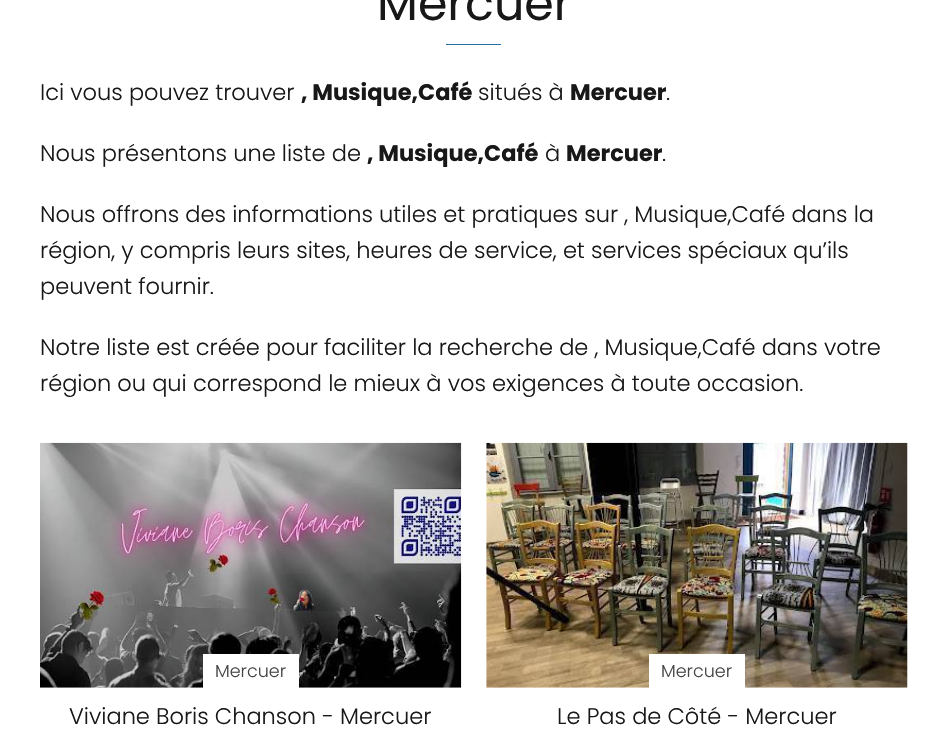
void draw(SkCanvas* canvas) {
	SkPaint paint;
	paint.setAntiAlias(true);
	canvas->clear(0xffffffff);
	SkFont f1(fontMgr->matchFamilyStyle("Poppins", SkFontStyle::Normal()), 47.5);
	f1.setSubpixel(true);
	paint.setColor(0xff181818);
	canvas->drawString("Mercuer", 377, 20, f1, paint);
	paint.setColor(0xff2471a3);
	canvas->drawRect(SkRect::MakeXYWH(446, 44, 55, 1), paint);
	SkFont f2(fontMgr->matchFamilyStyle("Poppins", SkFontStyle(300, SkFontStyle::kNormal_Width, SkFontStyle::kUpright_Slant)), 22.5);
	f2.setSubpixel(true);
	paint.setColor(0xff181818);
	canvas->drawString("Ici vous pouvez trouver", 40, 100, f2, paint);
	SkFont f3(fontMgr->matchFamilyStyle("Poppins", SkFontStyle::Bold()), 22.5);
	f3.setSubpixel(true);
	canvas->drawString(", Musique,Café", 301, 100, f3, paint);
	canvas->drawString("situés à", 478, 100, f2, paint);
	canvas->drawString("Mercuer", 570, 100, f3, paint);
	canvas->drawString(".", 666, 100, f2, paint);
	canvas->drawString("Nous présentons une liste de", 40, 161, f2, paint);
	canvas->drawString(", Musique,Café", 367, 161, f3, paint);
	canvas->drawString("à", 545, 161, f2, paint);
	canvas->drawString("Mercuer", 566, 161, f3, paint);
	canvas->drawString(".", 662, 161, f2, paint);
	canvas->drawString("Nous offrons des informations utiles et pratiques sur , Musique,Café dans la", 40, 222, f2, paint);
	canvas->drawString("région, y compris leurs sites, heures de service, et services spéciaux qu’ils", 40, 258, f2, paint);
	canvas->drawString("peuvent fournir.", 40, 294, f2, paint);
	canvas->drawString("Notre liste est créée pour faciliter la recherche de , Musique,Café dans votre", 40, 355, f2, paint);
	canvas->drawString("région ou qui correspond le mieux à vos exigences à toute occasion.", 40, 391, f2, paint);
	canvas->drawImageRect(SkImages::DeferredFromEncodedData(SkData::MakeFromFileName("img1.png")), SkRect::MakeXYWH(40, 442, 422, 246), SkSamplingOptions());
	paint.setColor(0xffffffff);
	canvas->drawRect(SkRect::MakeXYWH(203, 654, 96, 34), paint);
	SkFont f4(fontMgr->matchFamilyStyle("Poppins", SkFontStyle(300, SkFontStyle::kNormal_Width, SkFontStyle::kUpright_Slant)), 17.5);
	f4.setSubpixel(true);
	paint.setColor(0xff444444);
	canvas->drawString("Mercuer", 215, 677, f4, paint);
	paint.setColor(0xff181818);
	canvas->drawString("Viviane Boris Chanson - Mercuer", 69, 724, f2, paint);
	canvas->drawImageRect(SkImages::DeferredFromEncodedData(SkData::MakeFromFileName("img2.png")), SkRect::MakeXYWH(486, 442, 422, 246), SkSamplingOptions());
	paint.setColor(0xffffffff);
	canvas->drawRect(SkRect::MakeXYWH(649, 654, 96, 34), paint);
	paint.setColor(0xff444444);
	canvas->drawString("Mercuer", 661, 677, f4, paint);
	paint.setColor(0xff181818);
	canvas->drawString("Le Pas de Côté - Mercuer", 557, 724, f2, paint);
}
